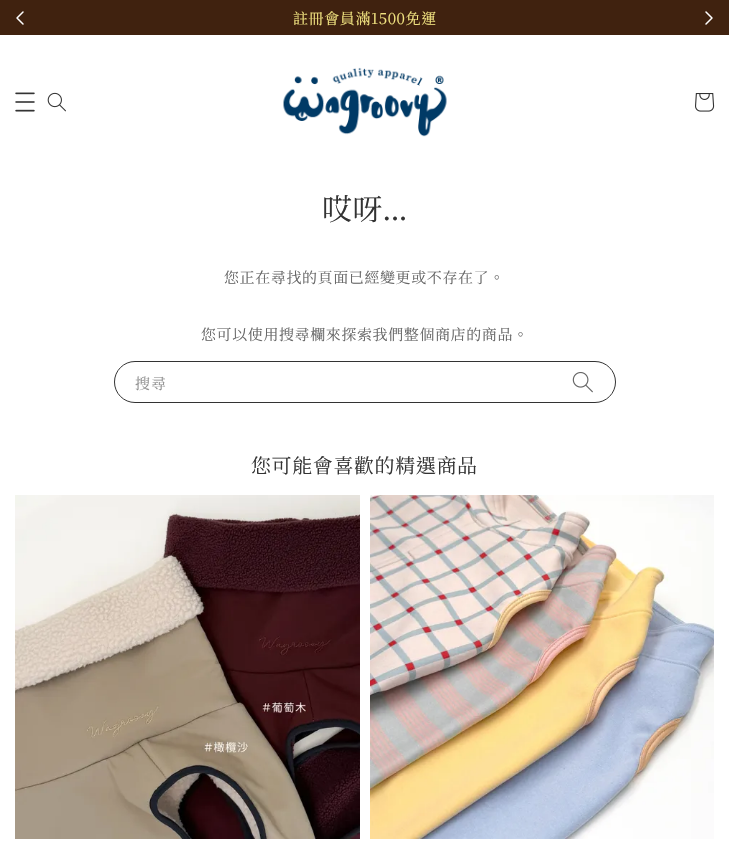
void draw(SkCanvas* canvas) {
	SkPaint paint;
	paint.setAntiAlias(true);
	auto spacedText = [&](const char* s, float x, float y, const SkFont& font, const SkPaint& ink, float letter, float word) {
		std::vector<SkGlyphID> glyphs(font.countText(s, strlen(s), SkTextEncoding::kUTF8));
		std::vector<float> xs(glyphs.size());
		font.textToGlyphs(s, strlen(s), SkTextEncoding::kUTF8, glyphs);
		font.getXPos(glyphs, xs, x);
		float extra = 0;
		for (size_t i = 0; i < glyphs.size(); i++) {
			xs[i] += extra;
			extra += letter + word * (glyphs[i] == font.unicharToGlyph(' '));
		}
		canvas->drawTextBlob(SkTextBlob::MakeFromPosHGlyphs(glyphs, xs, y, font), 0, 0, ink);
	};
	auto svgPath = [&](const char* data, bool evenOdd = false) {
		SkPath result = *SkParsePath::FromSVGString(data);
		if (evenOdd) result.setFillType(SkPathFillType::kEvenOdd);
		return result;
	};
	canvas->clear(0xffffffff);
	paint.setColor(0xff40220f);
	canvas->drawRect(SkRect::MakeXYWH(0, 0, 729, 35), paint);
	paint.setStroke(true);
	paint.setStrokeWidth(1.5);
	paint.setStrokeCap(SkPaint::kRound_Cap);
	paint.setStrokeJoin(SkPaint::kRound_Join);
	paint.setColor(0xffffffff);
	canvas->drawPath(svgPath("M23 12L17 18L23 24"), paint);
	SkFont f1(fontMgr->matchFamilyStyle("Noto Serif TC", SkFontStyle(200, SkFontStyle::kNormal_Width, SkFontStyle::kUpright_Slant)), 15);
	f1.setSubpixel(true);
	paint.setStroke(false);
	paint.setColor(0xfff1e380);
	spacedText("註冊會員滿1500免運", 293, 24, f1, paint, 0.6, 0);
	paint.setStroke(true);
	paint.setColor(0xffffffff);
	canvas->drawPath(svgPath("M706 12L712 18L706 24"), paint);
	canvas->drawImageRect(SkImages::DeferredFromEncodedData(SkData::MakeFromFileName("img1.png")), SkRect::MakeXYWH(15, 92, 20, 20), SkSamplingOptions());
	canvas->drawImageRect(SkImages::DeferredFromEncodedData(SkData::MakeFromFileName("img2.png")), SkRect::MakeXYWH(47, 92, 19, 20), SkSamplingOptions());
	canvas->drawImageRect(SkImages::DeferredFromEncodedData(SkData::MakeFromFileName("img3.png")), SkRect::MakeXYWH(283, 67, 164, 70), SkSamplingOptions());
	canvas->drawImageRect(SkImages::DeferredFromEncodedData(SkData::MakeFromFileName("img4.png")), SkRect::MakeXYWH(695, 93, 20, 19), SkSamplingOptions());
	SkFont f2(fontMgr->matchFamilyStyle("Noto Serif TC", SkFontStyle(200, SkFontStyle::kNormal_Width, SkFontStyle::kUpright_Slant)), 30);
	f2.setSubpixel(true);
	paint.setStroke(false);
	paint.setColor(0xff333333);
	spacedText("哎呀", 322, 220, f2, paint, 0.6, 0);
	SkFont f3(fontMgr->matchFamilyStyle("Playfair Display", SkFontStyle::Normal()), 30);
	f3.setSubpixel(true);
	spacedText("...", 383, 220, f3, paint, 0.6, 0);
	paint.setColor(0xff666666);
	spacedText("您正在尋找的頁面已經變更或不存在了。", 224, 283, f1, paint, 0.6, 0);
	spacedText("您可以使用搜尋欄來探索我們整個商店的商品。", 201, 340, f1, paint, 0.6, 0);
	paint.setStroke(true);
	paint.setStrokeWidth(1);
	paint.setStrokeCap(SkPaint::kButt_Cap);
	paint.setStrokeJoin(SkPaint::kMiter_Join);
	paint.setColor(0xff333333);
	canvas->drawRoundRect(SkRect::MakeXYWH(114.5, 361.5, 501, 41), 20.5, 20.5, paint);
	paint.setStroke(false);
	paint.setColor(0xff8f8f8f);
	spacedText("搜尋", 135, 389, f1, paint, 1, 0);
	canvas->drawImageRect(SkImages::DeferredFromEncodedData(SkData::MakeFromFileName("img5.png")), SkRect::MakeXYWH(572, 372, 21, 21), SkSamplingOptions());
	SkFont f4(fontMgr->matchFamilyStyle("Noto Serif TC", SkFontStyle(200, SkFontStyle::kNormal_Width, SkFontStyle::kUpright_Slant)), 20);
	f4.setSubpixel(true);
	paint.setColor(0xff333333);
	spacedText("您可能會喜歡的精選商品", 251, 473, f4, paint, 0.6, 0);
	canvas->drawImageRect(SkImages::DeferredFromEncodedData(SkData::MakeFromFileName("img6.png")), SkRect::MakeXYWH(15, 495, 345, 344), SkSamplingOptions());
	canvas->drawImageRect(SkImages::DeferredFromEncodedData(SkData::MakeFromFileName("img7.png")), SkRect::MakeXYWH(370, 495, 344, 344), SkSamplingOptions());
}
